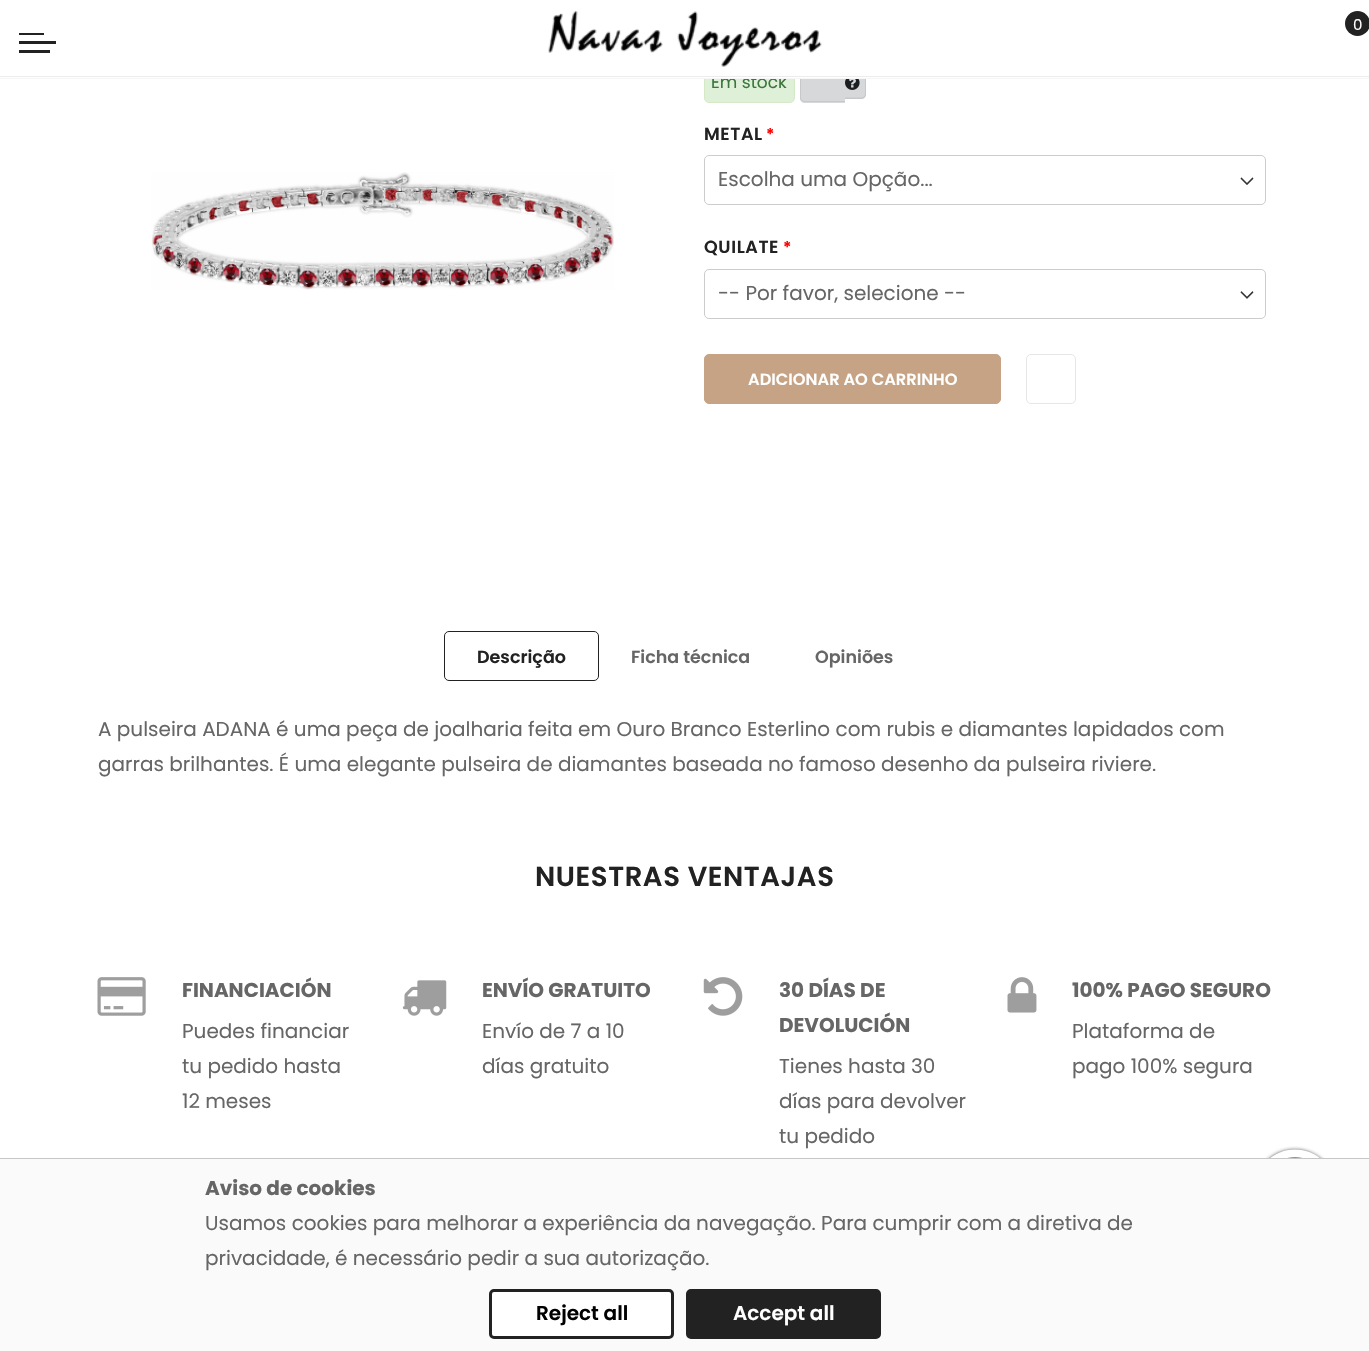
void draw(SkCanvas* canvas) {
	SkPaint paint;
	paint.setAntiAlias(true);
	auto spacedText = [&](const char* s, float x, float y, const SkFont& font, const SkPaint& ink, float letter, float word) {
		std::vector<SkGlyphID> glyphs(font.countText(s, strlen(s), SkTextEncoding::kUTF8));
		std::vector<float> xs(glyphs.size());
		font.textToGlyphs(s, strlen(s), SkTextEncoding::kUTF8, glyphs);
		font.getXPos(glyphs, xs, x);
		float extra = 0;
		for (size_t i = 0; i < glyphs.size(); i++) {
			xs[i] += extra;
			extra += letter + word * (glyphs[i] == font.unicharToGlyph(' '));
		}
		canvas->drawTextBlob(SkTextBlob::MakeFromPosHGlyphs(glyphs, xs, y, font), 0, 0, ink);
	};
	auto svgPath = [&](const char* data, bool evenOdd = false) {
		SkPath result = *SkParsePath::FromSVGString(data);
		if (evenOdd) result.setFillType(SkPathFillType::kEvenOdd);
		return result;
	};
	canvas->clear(0xffffffff);
	paint.setColor(0xffdff0d8);
	canvas->drawRoundRect(SkRect::MakeXYWH(704.5, 64.5, 90, 38), 4.5, 4.5, paint);
	paint.setStroke(true);
	paint.setStrokeWidth(1);
	paint.setColor(0xffd6e9c6);
	canvas->drawRoundRect(SkRect::MakeXYWH(704.5, 64.5, 90, 38), 4.5, 4.5, paint);
	SkFont f1(fontMgr->matchFamilyStyle("Poppins", SkFontStyle::Normal()), 17);
	f1.setSubpixel(true);
	paint.setStroke(false);
	paint.setColor(0xff3c763d);
	canvas->drawString("Em stock", 711, 88, f1, paint);
	paint.setColor(0xffd6d8d9);
	canvas->drawPath(svgPath("M805 64H845V103H805C802 103 800 101 800 98V69C800 66 802 64 805 64Z"), paint);
	paint.setColor(0xffc6c8ca);
	canvas->drawPath(svgPath("M805 64H845V102H805C802 102 800 100 800 98V69C800 66 802 64 805 64ZM805 65H845V101H805C803 101 801 100 801 98V69C801 67 803 65 805 65Z", true), paint);
	paint.setColor(0xffd6d8d9);
	canvas->drawPath(svgPath("M845 68H861C864 68 866 70 866 73V94C866 97 864 99 861 99H845Z"), paint);
	paint.setColor(0xffc6c8ca);
	canvas->drawPath(svgPath("M845 67.5H861C864 67.5 866 69.5 866 72.5V94C866 96.5 864 99 861 99H845ZM845 69H861C863.5 69 865 70.5 865 72.5V94C865 96 863.5 97.5 861 97.5H845Z", true), paint);
	paint.setColor(0xffffffff);
	canvas->drawRect(SkRect::MakeXYWH(704, 64, 162, 14), paint);
	paint.setColor(0xfff6f6f8);
	canvas->drawRect(SkRect::MakeXYWH(0, 78, 1369, 1), paint);
	canvas->drawImageRect(SkImages::DeferredFromEncodedData(SkData::MakeFromFileName("img1.png")), SkRect::MakeXYWH(548, 11, 274, 56), SkSamplingOptions());
	paint.setColor(0xff222222);
	canvas->drawCircle(1357.5, 23.5, 12.5, paint);
	SkFont f2(fontMgr->matchFamilyStyle("Poppins", SkFontStyle::Normal()), 15);
	f2.setSubpixel(true);
	paint.setColor(0xffffffff);
	canvas->drawString("0", 1353, 30, f2, paint);
	paint.setColor(0xff222222);
	canvas->drawRect(SkRect::MakeXYWH(19, 33, 25, 2), paint);
	canvas->drawRect(SkRect::MakeXYWH(19, 41, 37, 3), paint);
	canvas->drawRect(SkRect::MakeXYWH(19, 50, 31, 3), paint);
	paint.setColor(0xffececec);
	canvas->drawRect(SkRect::MakeXYWH(0, 76, 1369, 1), paint);
	canvas->drawImageRect(SkImages::DeferredFromEncodedData(SkData::MakeFromFileName("img2.png")), SkRect::MakeXYWH(151, 172, 463, 118), SkSamplingOptions());
	canvas->drawImageRect(SkImages::DeferredFromEncodedData(SkData::MakeFromFileName("img3.png")), SkRect::MakeXYWH(845, 79, 15, 11), SkSamplingOptions());
	SkFont f3(fontMgr->matchFamilyStyle("Poppins", SkFontStyle(600, SkFontStyle::kNormal_Width, SkFontStyle::kUpright_Slant)), 17.5);
	f3.setSubpixel(true);
	paint.setColor(0xff222222);
	spacedText("METAL", 704, 140, f3, paint, 0.6, 0);
	SkFont f4(fontMgr->matchFamilyStyle("Poppins", SkFontStyle(600, SkFontStyle::kNormal_Width, SkFontStyle::kUpright_Slant)), 16.25);
	f4.setSubpixel(true);
	paint.setColor(0xffff0000);
	spacedText("*", 766, 140, f4, paint, 0.6, 0);
	canvas->drawImageRect(SkImages::DeferredFromEncodedData(SkData::MakeFromFileName("img4.png")), SkRect::MakeXYWH(1240, 177, 14, 8), SkSamplingOptions());
	paint.setStroke(true);
	paint.setColor(0xffcccccc);
	canvas->drawRoundRect(SkRect::MakeXYWH(704.5, 155.5, 561, 49), 4.5, 4.5, paint);
	SkFont f5(fontMgr->matchFamilyStyle("Poppins", SkFontStyle::Normal()), 20);
	f5.setSubpixel(true);
	paint.setStroke(false);
	paint.setColor(0xff666666);
	canvas->drawString("Escolha uma Opção...", 718, 186, f5, paint);
	paint.setColor(0xff222222);
	spacedText("QUILATE", 704, 253, f3, paint, 0.6, 0);
	paint.setColor(0xffff0000);
	spacedText("*", 783, 253, f4, paint, 0.6, 0);
	canvas->drawImageRect(SkImages::DeferredFromEncodedData(SkData::MakeFromFileName("img5.png")), SkRect::MakeXYWH(1240, 291, 14, 8), SkSamplingOptions());
	paint.setStroke(true);
	paint.setColor(0xffcccccc);
	canvas->drawRoundRect(SkRect::MakeXYWH(704.5, 269.5, 561, 49), 4.5, 4.5, paint);
	paint.setStroke(false);
	paint.setColor(0xff666666);
	canvas->drawString("-- Por favor, selecione --", 718, 300, f5, paint);
	paint.setColor(0xffc5a384);
	canvas->drawRoundRect(SkRect::MakeXYWH(704.5, 354.5, 296, 49), 4.5, 4.5, paint);
	paint.setStroke(true);
	canvas->drawRoundRect(SkRect::MakeXYWH(704.5, 354.5, 296, 49), 4.5, 4.5, paint);
	paint.setStroke(false);
	paint.setColor(0xffffffff);
	canvas->drawString("ADICIONAR AO CARRINHO", 748, 385, f4, paint);
	paint.setStroke(true);
	paint.setColor(0xffe6e6e6);
	canvas->drawRoundRect(SkRect::MakeXYWH(1026.5, 354.5, 49, 49), 4.5, 4.5, paint);
	paint.setColor(0xff222222);
	canvas->drawRoundRect(SkRect::MakeXYWH(444.5, 631.5, 154, 49), 4.5, 4.5, paint);
	paint.setStroke(false);
	canvas->drawString("Descrição", 477, 663, f3, paint);
	paint.setColor(0xff666666);
	canvas->drawString("Ficha técnica", 631, 663, f3, paint);
	canvas->drawString("Opiniões", 815, 663, f3, paint);
	canvas->drawString("A pulseira ADANA é uma peça de joalharia feita em Ouro Branco Esterlino com rubis e diamantes lapidados com", 98, 736, f5, paint);
	canvas->drawString("garras brilhantes. É uma elegante pulseira de diamantes baseada no famoso desenho da pulseira riviere.", 98, 771, f5, paint);
	SkFont f6(fontMgr->matchFamilyStyle("Poppins", SkFontStyle(600, SkFontStyle::kNormal_Width, SkFontStyle::kUpright_Slant)), 27.5);
	f6.setSubpixel(true);
	paint.setColor(0xff222222);
	spacedText("NUESTRAS VENTAJAS", 535, 886, f6, paint, 0.6, 0);
	canvas->drawImageRect(SkImages::DeferredFromEncodedData(SkData::MakeFromFileName("img6.png")), SkRect::MakeXYWH(97, 977, 49, 39), SkSamplingOptions());
	SkFont f7(fontMgr->matchFamilyStyle("Poppins", SkFontStyle::Bold()), 20);
	f7.setSubpixel(true);
	paint.setColor(0xff666666);
	canvas->drawString("FINANCIACIÓN", 182, 997, f7, paint);
	canvas->drawString("Puedes financiar", 182, 1038, f5, paint);
	canvas->drawString("tu pedido hasta", 182, 1073, f5, paint);
	canvas->drawString("12 meses", 182, 1108, f5, paint);
	canvas->drawImageRect(SkImages::DeferredFromEncodedData(SkData::MakeFromFileName("img7.png")), SkRect::MakeXYWH(402, 980, 45, 36), SkSamplingOptions());
	canvas->drawString("ENVÍO GRATUITO", 482, 997, f7, paint);
	canvas->drawString("Envío de 7 a 10", 482, 1038, f5, paint);
	canvas->drawString("días gratuito", 482, 1073, f5, paint);
	canvas->drawImageRect(SkImages::DeferredFromEncodedData(SkData::MakeFromFileName("img8.png")), SkRect::MakeXYWH(703, 977, 40, 39), SkSamplingOptions());
	canvas->drawString("30 DÍAS DE", 779, 997, f7, paint);
	canvas->drawString("DEVOLUCIÓN", 779, 1032, f7, paint);
	canvas->drawString("Tienes hasta 30", 779, 1073, f5, paint);
	canvas->drawString("días para devolver", 779, 1108, f5, paint);
	canvas->drawString("tu pedido", 779, 1143, f5, paint);
	canvas->drawImageRect(SkImages::DeferredFromEncodedData(SkData::MakeFromFileName("img9.png")), SkRect::MakeXYWH(1007, 977, 30, 36), SkSamplingOptions());
	canvas->drawString("100% PAGO SEGURO", 1072, 997, f7, paint);
	canvas->drawString("Plataforma de", 1072, 1038, f5, paint);
	canvas->drawString("pago 100% segura", 1072, 1073, f5, paint);
	canvas->drawImageRect(SkImages::DeferredFromEncodedData(SkData::MakeFromFileName("img10.png")), SkRect::MakeXYWH(1266, 1146, 58, 12), SkSamplingOptions());
	paint.setColor(0xfffafafa);
	canvas->drawRect(SkRect::MakeXYWH(0, 1159, 1369, 192), paint);
	paint.setColor(0xffc6c6c6);
	canvas->drawRect(SkRect::MakeXYWH(0, 1158, 1369, 1), paint);
	paint.setColor(0xff666666);
	canvas->drawString("Aviso de cookies", 205, 1195, f7, paint);
	canvas->drawString("Usamos cookies para melhorar a experiência da navegação. Para cumprir com a diretiva de", 205, 1230, f5, paint);
	canvas->drawString("privacidade, é necessário pedir a sua autorização.", 205, 1265, f5, paint);
	paint.setColor(0xffffffff);
	canvas->drawRoundRect(SkRect::MakeXYWH(490.5, 1290.5, 182, 47), 3.5, 3.5, paint);
	paint.setStroke(true);
	paint.setStrokeWidth(3);
	paint.setColor(0xff222222);
	canvas->drawRoundRect(SkRect::MakeXYWH(490.5, 1290.5, 182, 47), 3.5, 3.5, paint);
	SkFont f8(fontMgr->matchFamilyStyle("Poppins", SkFontStyle(600, SkFontStyle::kNormal_Width, SkFontStyle::kUpright_Slant)), 20);
	f8.setSubpixel(true);
	paint.setStroke(false);
	paint.setColor(0xff000000);
	canvas->drawString("Reject all", 536, 1320, f8, paint);
	paint.setColor(0xff222222);
	canvas->drawRoundRect(SkRect::MakeXYWH(687.5, 1290.5, 192, 47), 3.5, 3.5, paint);
	paint.setStroke(true);
	canvas->drawRoundRect(SkRect::MakeXYWH(687.5, 1290.5, 192, 47), 3.5, 3.5, paint);
	paint.setStroke(false);
	paint.setColor(0xffffffff);
	canvas->drawString("Accept all", 733, 1320, f8, paint);
}
